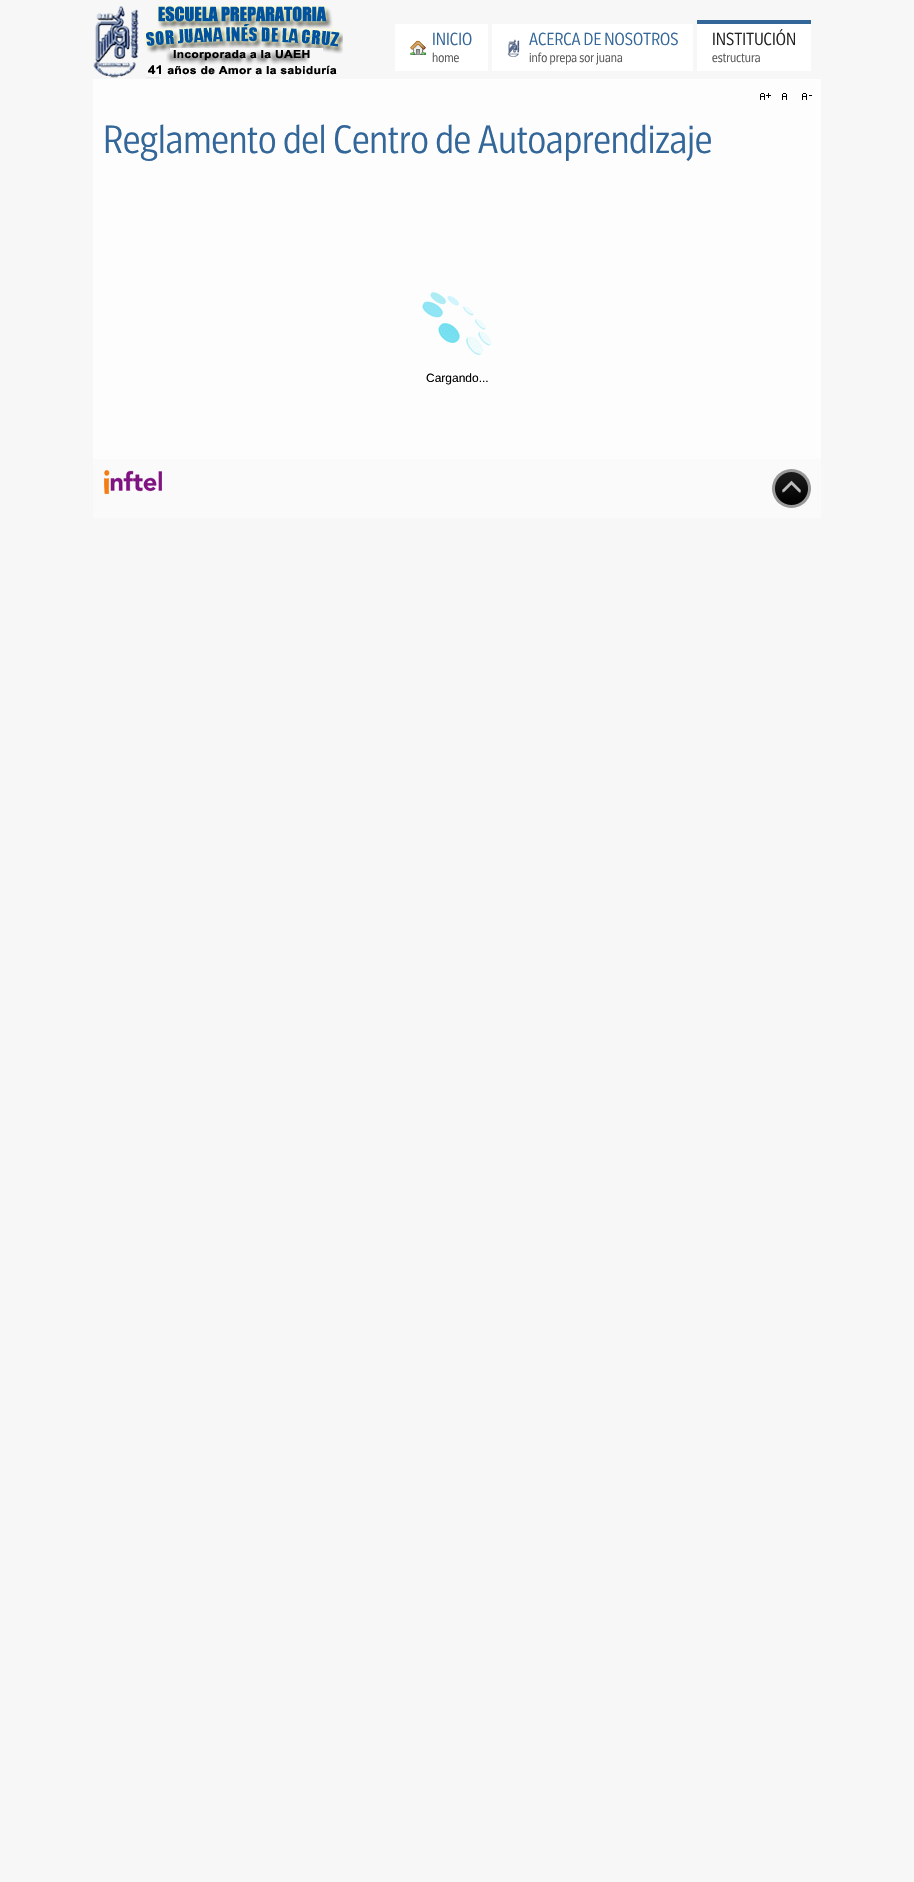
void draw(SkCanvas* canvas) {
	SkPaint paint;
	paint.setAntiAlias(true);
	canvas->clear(0xfff7f7f7);
	canvas->drawImageRect(SkImages::DeferredFromEncodedData(SkData::MakeFromFileName("img1.png")), SkRect::MakeXYWH(93, 5, 250, 74), SkSamplingOptions());
	paint.setColor(0xffffffff);
	canvas->drawRect(SkRect::MakeXYWH(395, 24, 93, 47), paint);
	canvas->drawImageRect(SkImages::DeferredFromEncodedData(SkData::MakeFromFileName("img2.png")), SkRect::MakeXYWH(410, 40, 16, 15), SkSamplingOptions());
	SkFont f1(fontMgr->matchFamilyStyle("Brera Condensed", SkFontStyle(300, SkFontStyle::kNormal_Width, SkFontStyle::kUpright_Slant)), 17);
	f1.setSubpixel(true);
	paint.setColor(0xff336699);
	canvas->drawString("INICIO", 432, 45, f1, paint);
	SkFont f2(fontMgr->matchFamilyStyle("Brera Condensed", SkFontStyle(300, SkFontStyle::kNormal_Width, SkFontStyle::kUpright_Slant)), 12.75);
	f2.setSubpixel(true);
	paint.setColor(0xff555555);
	canvas->drawString("home", 432, 62, f2, paint);
	paint.setColor(0xffffffff);
	canvas->drawRect(SkRect::MakeXYWH(492, 24, 201, 47), paint);
	canvas->drawImageRect(SkImages::DeferredFromEncodedData(SkData::MakeFromFileName("img3.png")), SkRect::MakeXYWH(507, 39, 13, 18), SkSamplingOptions());
	paint.setColor(0xff336699);
	canvas->drawString("ACERCA DE NOSOTROS", 529, 45, f1, paint);
	paint.setColor(0xff555555);
	canvas->drawString("info prepa sor juana", 529, 62, f2, paint);
	paint.setColor(0xffffffff);
	canvas->drawRect(SkRect::MakeXYWH(697, 24, 114, 47), paint);
	paint.setColor(0xff336699);
	canvas->drawRect(SkRect::MakeXYWH(697, 20, 114, 4), paint);
	paint.setColor(0xff222222);
	canvas->drawString("INSTITUCIÓN", 712, 45, f1, paint);
	paint.setColor(0xff555555);
	canvas->drawString("estructura", 712, 62, f2, paint);
	paint.setColor(0xfffdfdfd);
	canvas->drawRect(SkRect::MakeXYWH(93, 79, 728, 380), paint);
	canvas->drawImageRect(SkImages::DeferredFromEncodedData(SkData::MakeFromFileName("img4.png")), SkRect::MakeXYWH(760, 93, 11, 7), SkSamplingOptions());
	canvas->drawImageRect(SkImages::DeferredFromEncodedData(SkData::MakeFromFileName("img5.png")), SkRect::MakeXYWH(782, 93, 5, 7), SkSamplingOptions());
	canvas->drawImageRect(SkImages::DeferredFromEncodedData(SkData::MakeFromFileName("img6.png")), SkRect::MakeXYWH(802, 93, 10, 7), SkSamplingOptions());
	SkFont f3(fontMgr->matchFamilyStyle("Brera Condensed", SkFontStyle(300, SkFontStyle::kNormal_Width, SkFontStyle::kUpright_Slant)), 38.5);
	f3.setSubpixel(true);
	paint.setColor(0xff336699);
	canvas->drawString("Reglamento del Centro de Autoaprendizaje", 103, 153, f3, paint);
	canvas->drawImageRect(SkImages::DeferredFromEncodedData(SkData::MakeFromFileName("img7.png")), SkRect::MakeXYWH(422, 292, 70, 63), SkSamplingOptions());
	SkFont f4(fontMgr->matchFamilyStyle("Liberation Sans", SkFontStyle::Normal()), 12);
	f4.setSubpixel(true);
	paint.setColor(0xff000000);
	canvas->drawString("Cargando...", 426, 382, f4, paint);
	paint.setColor(0xfffafafa);
	canvas->drawRect(SkRect::MakeXYWH(93, 459, 728, 59), paint);
	canvas->drawImageRect(SkImages::DeferredFromEncodedData(SkData::MakeFromFileName("img8.png")), SkRect::MakeXYWH(104, 470, 58, 24), SkSamplingOptions());
	canvas->drawImageRect(SkImages::DeferredFromEncodedData(SkData::MakeFromFileName("img9.png")), SkRect::MakeXYWH(772, 469, 39, 39), SkSamplingOptions());
}
